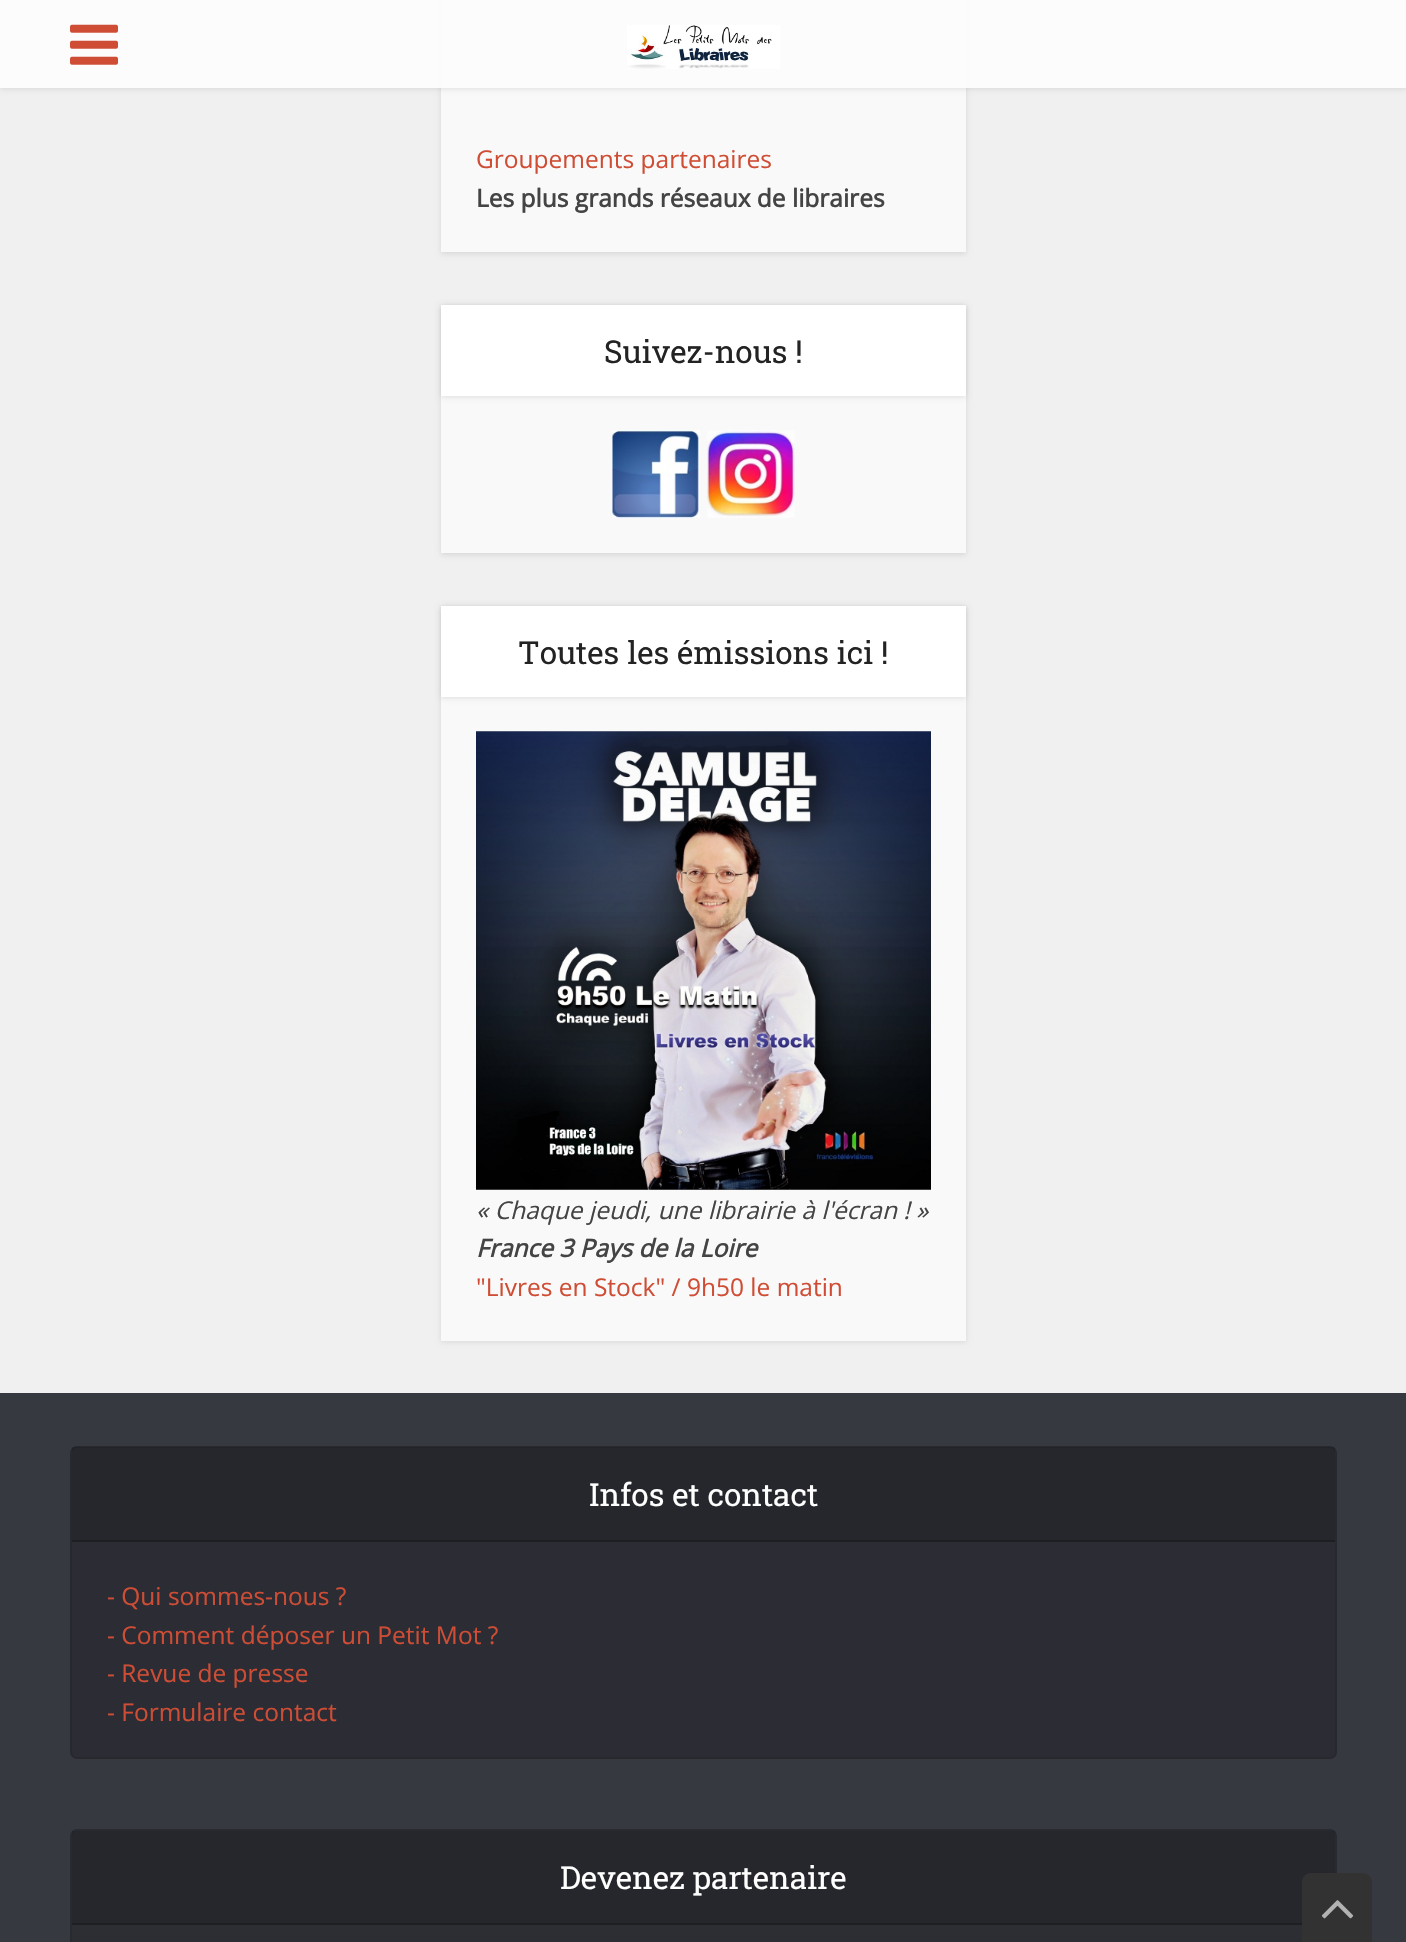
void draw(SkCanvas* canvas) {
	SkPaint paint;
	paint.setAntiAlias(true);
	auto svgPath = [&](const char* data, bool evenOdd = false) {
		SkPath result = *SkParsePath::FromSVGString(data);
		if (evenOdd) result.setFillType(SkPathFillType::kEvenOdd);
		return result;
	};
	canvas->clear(0xfff0f0f0);
	paint.setColor(0x1a000000);
	paint.setMaskFilter(SkMaskFilter::MakeBlur(kNormal_SkBlurStyle, 2.5));
	canvas->drawRect(SkRect::MakeXYWH(441, -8, 525, 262), paint);
	paint.setMaskFilter(nullptr);
	paint.setColor(0xfff9f9f9);
	canvas->drawRect(SkRect::MakeXYWH(441, 0, 525, 252), paint);
	canvas->save();
	canvas->clipPath(svgPath("M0 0H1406V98H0ZM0 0H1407V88H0Z", true), true);
	paint.setColor(0x1a000000);
	paint.setMaskFilter(SkMaskFilter::MakeBlur(kNormal_SkBlurStyle, 2.5));
	canvas->drawRect(SkRect::MakeXYWH(0, 2, 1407, 87), paint);
	paint.setMaskFilter(nullptr);
	canvas->restore();
	paint.setColor(0xf2fcfcfc);
	canvas->drawRect(SkRect::MakeXYWH(0, 0, 1406, 88), paint);
	canvas->drawImageRect(SkImages::DeferredFromEncodedData(SkData::MakeFromFileName("img1.png")), SkRect::MakeXYWH(70, 24, 48, 41), SkSamplingOptions());
	canvas->drawImageRect(SkImages::DeferredFromEncodedData(SkData::MakeFromFileName("img2.png")), SkRect::MakeXYWH(627, 25, 154, 44), SkSamplingOptions());
	SkFont f1(fontMgr->matchFamilyStyle("Open Sans", SkFontStyle::Normal()), 24.5);
	f1.setSubpixel(true);
	paint.setColor(0xffcf4d35);
	canvas->drawString("Groupements partenaires", 476, 168, f1, paint);
	SkFont f2(fontMgr->matchFamilyStyle("Open Sans", SkFontStyle::Bold()), 24.5);
	f2.setSubpixel(true);
	paint.setColor(0xff444444);
	canvas->drawString("Les plus grands réseaux de libraires", 476, 207, f2, paint);
	paint.setColor(0x1a000000);
	paint.setMaskFilter(SkMaskFilter::MakeBlur(kNormal_SkBlurStyle, 2.5));
	canvas->drawRect(SkRect::MakeXYWH(441, 306, 525, 249), paint);
	paint.setMaskFilter(nullptr);
	paint.setColor(0xfff9f9f9);
	canvas->drawRect(SkRect::MakeXYWH(441, 396, 525, 157), paint);
	paint.setColor(0x1a000000);
	paint.setMaskFilter(SkMaskFilter::MakeBlur(kNormal_SkBlurStyle, 2.5));
	canvas->drawRect(SkRect::MakeXYWH(441, 306, 525, 91), paint);
	paint.setMaskFilter(nullptr);
	paint.setColor(0xffffffff);
	canvas->drawRect(SkRect::MakeXYWH(441, 305, 525, 91), paint);
	SkFont f3(fontMgr->matchFamilyStyle("Roboto Slab", SkFontStyle::Normal()), 31.5);
	f3.setSubpixel(true);
	paint.setColor(0xff232323);
	canvas->drawString("Suivez-nous !", 604, 363, f3, paint);
	canvas->drawImageRect(SkImages::DeferredFromEncodedData(SkData::MakeFromFileName("img3.png")), SkRect::MakeXYWH(612, 430, 88, 88), SkSamplingOptions());
	canvas->drawImageRect(SkImages::DeferredFromEncodedData(SkData::MakeFromFileName("img4.png")), SkRect::MakeXYWH(707, 430, 88, 88), SkSamplingOptions());
	paint.setColor(0x1a000000);
	paint.setMaskFilter(SkMaskFilter::MakeBlur(kNormal_SkBlurStyle, 2.5));
	canvas->drawRect(SkRect::MakeXYWH(441, 607, 525, 735), paint);
	paint.setMaskFilter(nullptr);
	paint.setColor(0xfff9f9f9);
	canvas->drawRect(SkRect::MakeXYWH(441, 697, 525, 644), paint);
	paint.setColor(0x1a000000);
	paint.setMaskFilter(SkMaskFilter::MakeBlur(kNormal_SkBlurStyle, 2.5));
	canvas->drawRect(SkRect::MakeXYWH(441, 607, 525, 91), paint);
	paint.setMaskFilter(nullptr);
	paint.setColor(0xffffffff);
	canvas->drawRect(SkRect::MakeXYWH(441, 606, 525, 91), paint);
	paint.setColor(0xff232323);
	canvas->drawString("Toutes les émissions ici !", 518, 664, f3, paint);
	canvas->drawImageRect(SkImages::DeferredFromEncodedData(SkData::MakeFromFileName("img5.png")), SkRect::MakeXYWH(476, 731, 455, 459), SkSamplingOptions());
	SkFont f4(fontMgr->matchFamilyStyle("Open Sans", SkFontStyle::Italic()), 24.5);
	f4.setSubpixel(true);
	paint.setColor(0xff444444);
	canvas->drawString("« Chaque jeudi, une librairie à l'écran ! »", 476, 1219, f4, paint);
	SkFont f5(fontMgr->matchFamilyStyle("Open Sans", SkFontStyle::BoldItalic()), 24.5);
	f5.setSubpixel(true);
	canvas->drawString("France 3 Pays de la Loire", 476, 1257, f5, paint);
	paint.setColor(0xffcf4d35);
	canvas->drawString("\"Livres en Stock\" / 9h50 le matin", 476, 1296, f1, paint);
	paint.setColor(0xff373941);
	canvas->drawRect(SkRect::MakeXYWH(0, 1393, 1406, 549), paint);
	paint.setColor(0xff2c2d34);
	canvas->drawRoundRect(SkRect::MakeXYWH(70, 1446, 1267, 313), 7, 7, paint);
	paint.setStroke(true);
	paint.setStrokeWidth(2);
	paint.setColor(0x1a000000);
	canvas->drawRoundRect(SkRect::MakeXYWH(71, 1447, 1265, 311), 6, 6, paint);
	paint.setStroke(false);
	paint.setColor(0x26000000);
	canvas->drawRect(SkRect::MakeXYWH(72, 1447, 1263, 93), paint);
	paint.setColor(0xff1e1f23);
	canvas->drawRect(SkRect::MakeXYWH(72, 1540, 1263, 2), paint);
	paint.setColor(0xffffffff);
	canvas->drawString("Infos et contact", 589, 1506, f3, paint);
	paint.setColor(0xffcf4d35);
	canvas->drawString("- Qui sommes-nous ?", 107, 1605, f1, paint);
	canvas->drawString("- Comment déposer un Petit Mot ?", 107, 1644, f1, paint);
	canvas->drawString("- Revue de presse", 107, 1682, f1, paint);
	canvas->drawString("- Formulaire contact", 107, 1721, f1, paint);
	paint.setColor(0xff2c2e34);
	canvas->drawRoundRect(SkRect::MakeXYWH(70, 1829, 1267, 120), 7, 7, paint);
	paint.setStroke(true);
	paint.setColor(0x1a000000);
	canvas->drawRoundRect(SkRect::MakeXYWH(71, 1830, 1265, 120), 6, 6, paint);
	paint.setStroke(false);
	paint.setColor(0x26000000);
	canvas->drawRect(SkRect::MakeXYWH(72, 1831, 1263, 92), paint);
	paint.setColor(0xff1e1f23);
	canvas->drawRect(SkRect::MakeXYWH(72, 1923, 1230, 2), paint);
	paint.setColor(0xffffffff);
	canvas->drawString("Devenez partenaire", 560, 1889, f3, paint);
	paint.setColor(0xff323232);
	canvas->drawPath(svgPath("M1311 1873H1363C1368 1873 1372 1877 1372 1882V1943H1302V1882C1302 1877 1306 1873 1311 1873Z"), paint);
	canvas->drawImageRect(SkImages::DeferredFromEncodedData(SkData::MakeFromFileName("img6.png")), SkRect::MakeXYWH(1321, 1900, 33, 19), SkSamplingOptions());
}
